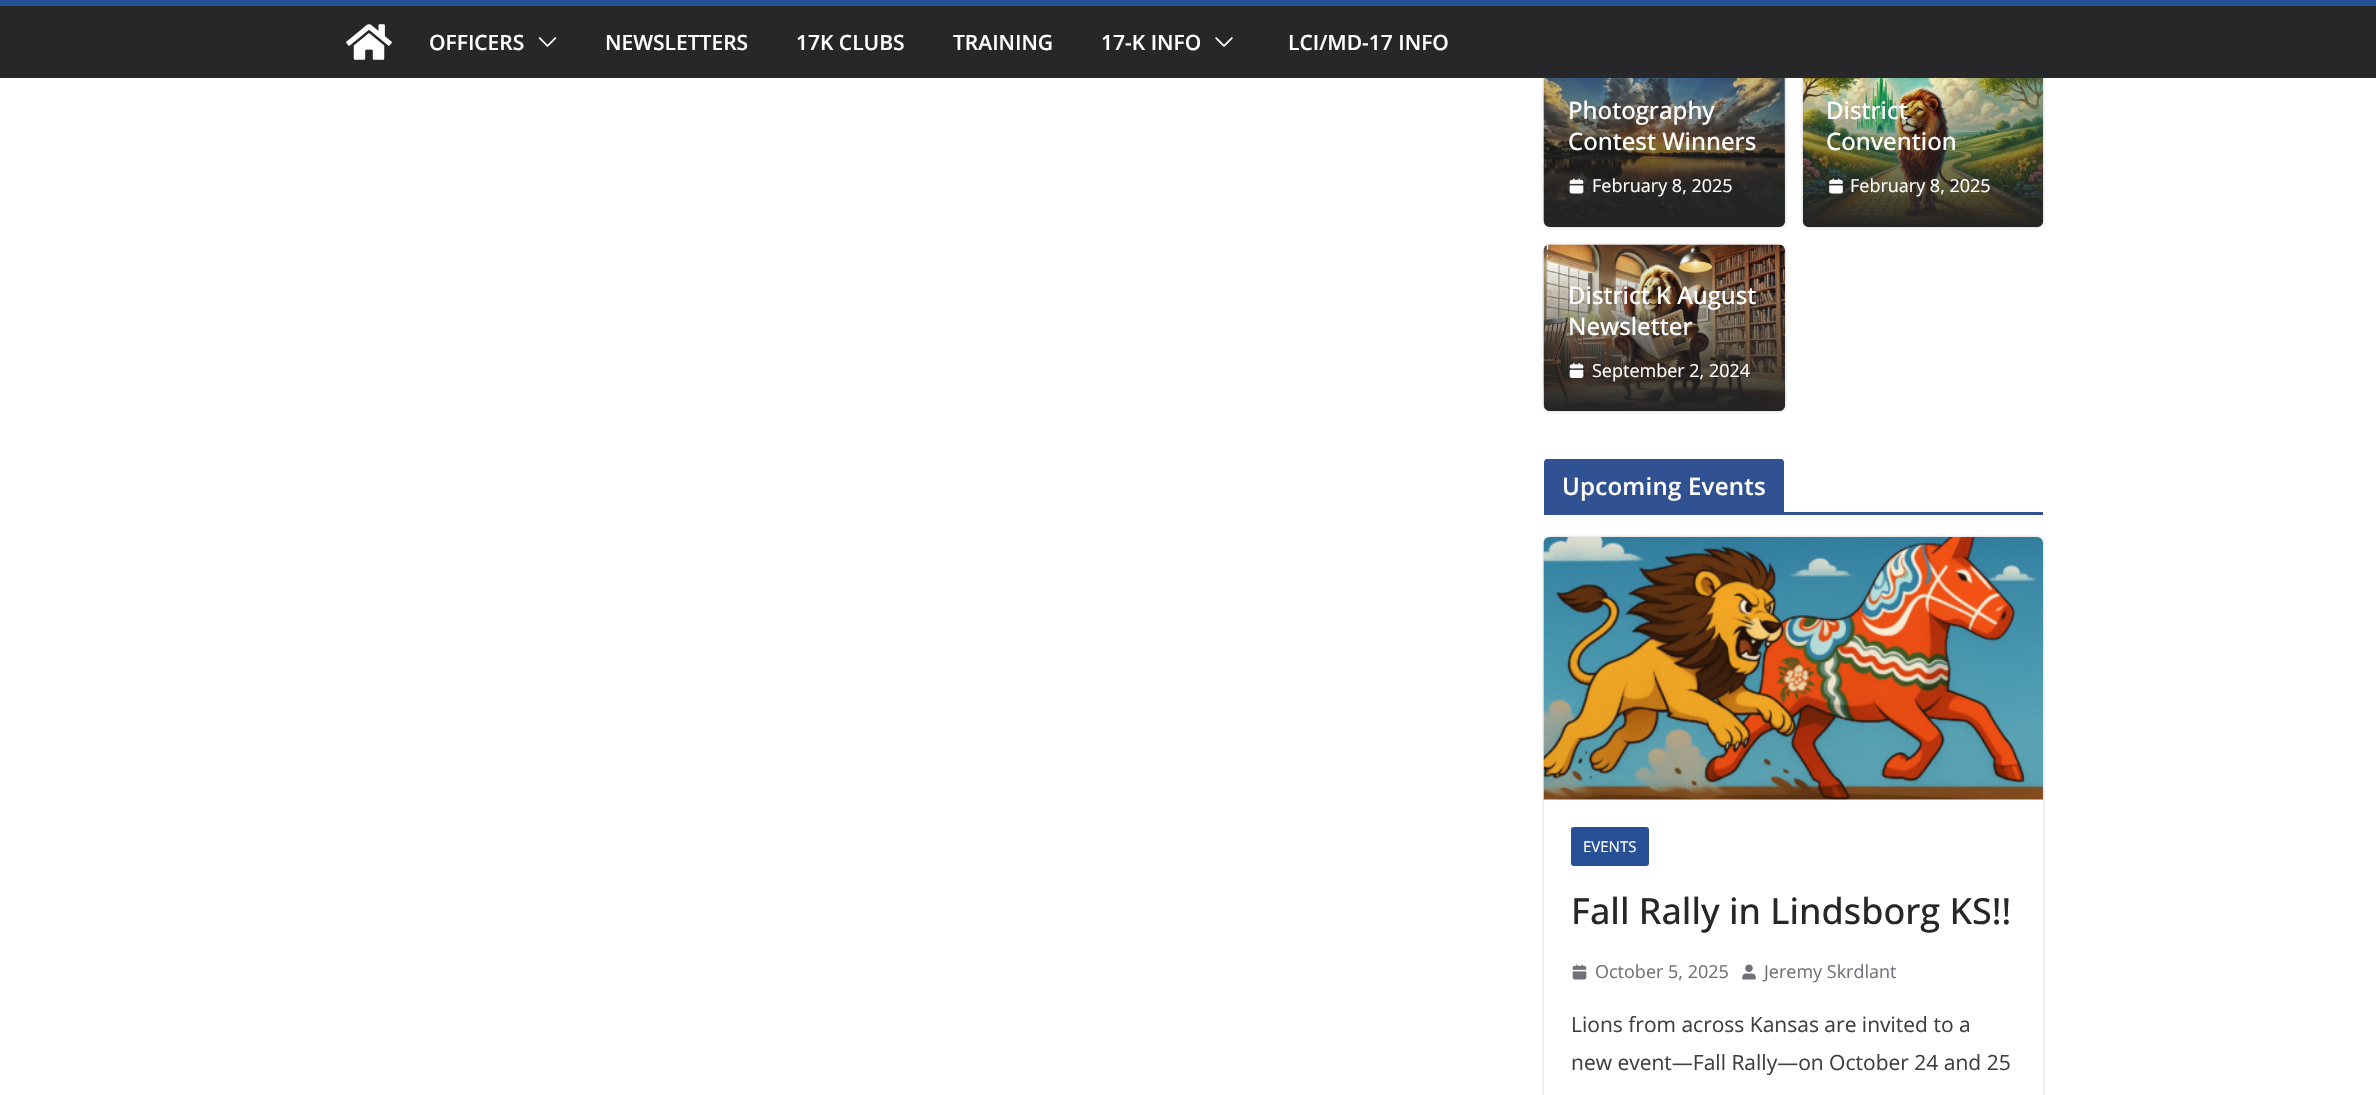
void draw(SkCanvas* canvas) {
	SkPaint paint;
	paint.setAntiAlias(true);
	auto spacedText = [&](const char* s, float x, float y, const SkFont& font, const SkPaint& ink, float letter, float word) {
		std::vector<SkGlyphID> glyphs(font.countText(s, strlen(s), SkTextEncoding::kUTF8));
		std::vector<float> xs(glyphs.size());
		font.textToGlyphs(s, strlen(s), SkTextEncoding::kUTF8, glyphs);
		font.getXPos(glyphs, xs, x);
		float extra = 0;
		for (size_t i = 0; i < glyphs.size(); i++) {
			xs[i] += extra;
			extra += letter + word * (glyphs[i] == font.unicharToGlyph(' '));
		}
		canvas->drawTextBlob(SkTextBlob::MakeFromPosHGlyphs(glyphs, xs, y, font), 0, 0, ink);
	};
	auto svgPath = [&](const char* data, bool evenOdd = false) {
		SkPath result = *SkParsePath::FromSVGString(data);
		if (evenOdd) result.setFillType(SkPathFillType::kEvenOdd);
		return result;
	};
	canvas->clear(0xffffffff);
	paint.setColor(0x3d000000);
	paint.setMaskFilter(SkMaskFilter::MakeBlur(kNormal_SkBlurStyle, 1.5));
	canvas->drawRoundRect(SkRect::MakeXYWH(1544, 59, 241, 168), 6, 6, paint);
	paint.setMaskFilter(nullptr);
	canvas->drawImageRect(SkImages::DeferredFromEncodedData(SkData::MakeFromFileName("img4.png")), SkRect::MakeXYWH(1543, 78, 242, 149), SkSamplingOptions());
	{
		const SkColor colors[] = {0x00232323, 0xff232323};
		const float stops[] = {0, 1};
		const SkPoint ends[] = {{1664, 40}, {1664, 227}};
		paint.setShader(SkGradientShader::MakeLinear(ends, colors, stops, 2, SkTileMode::kClamp));
		paint.setAlpha(255);
	}
	canvas->drawRoundRect(SkRect::MakeXYWH(1544, 59, 241, 168), 6, 6, paint);
	paint.setShader(nullptr);
	paint.setColor(0x3d000000);
	paint.setMaskFilter(SkMaskFilter::MakeBlur(kNormal_SkBlurStyle, 1.5));
	canvas->drawRoundRect(SkRect::MakeXYWH(1803, 59, 240, 168), 6, 6, paint);
	paint.setMaskFilter(nullptr);
	canvas->drawImageRect(SkImages::DeferredFromEncodedData(SkData::MakeFromFileName("img6.png")), SkRect::MakeXYWH(1803, 78, 240, 149), SkSamplingOptions());
	{
		const SkColor colors[] = {0x00232323, 0xff232323};
		const float stops[] = {0, 1};
		const SkPoint ends[] = {{1923, 70}, {1923, 227}};
		paint.setShader(SkGradientShader::MakeLinear(ends, colors, stops, 2, SkTileMode::kClamp));
		paint.setAlpha(255);
	}
	canvas->drawPath(svgPath("M1803 71H2043V221C2043 224.5 2040.5 227 2037 227H1809C1805.5 227 1803 224.5 1803 221Z"), paint);
	paint.setShader(nullptr);
	paint.setColor(0xff27272a);
	canvas->drawRect(SkRect::MakeXYWH(0, 6, 2376, 72), paint);
	paint.setColor(0xff285097);
	canvas->drawRect(SkRect::MakeXYWH(0, 0, 2376, 6), paint);
	canvas->drawImageRect(SkImages::DeferredFromEncodedData(SkData::MakeFromFileName("img1.png")), SkRect::MakeXYWH(346, 24, 46, 36), SkSamplingOptions());
	SkFont f1(fontMgr->matchFamilyStyle("Open Sans", SkFontStyle(600, SkFontStyle::kNormal_Width, SkFontStyle::kUpright_Slant)), 21);
	f1.setSubpixel(true);
	paint.setColor(0xffffffff);
	canvas->drawString("OFFICERS", 429, 50, f1, paint);
	canvas->drawImageRect(SkImages::DeferredFromEncodedData(SkData::MakeFromFileName("img2.png")), SkRect::MakeXYWH(538, 37, 19, 10), SkSamplingOptions());
	canvas->drawString("NEWSLETTERS", 605, 50, f1, paint);
	canvas->drawString("17K CLUBS", 796, 50, f1, paint);
	canvas->drawString("TRAINING", 953, 50, f1, paint);
	canvas->drawString("17-K INFO", 1101, 50, f1, paint);
	canvas->drawImageRect(SkImages::DeferredFromEncodedData(SkData::MakeFromFileName("img3.png")), SkRect::MakeXYWH(1215, 37, 18, 10), SkSamplingOptions());
	canvas->drawString("LCI/MD-17 INFO", 1288, 50, f1, paint);
	SkFont f2(fontMgr->matchFamilyStyle("Open Sans", SkFontStyle(500, SkFontStyle::kNormal_Width, SkFontStyle::kUpright_Slant)), 24);
	f2.setSubpixel(true);
	canvas->drawString("Photography", 1568, 119, f2, paint);
	canvas->drawString("Contest Winners", 1568, 150, f2, paint);
	canvas->drawImageRect(SkImages::DeferredFromEncodedData(SkData::MakeFromFileName("img5.png")), SkRect::MakeXYWH(1569, 178, 15, 16), SkSamplingOptions());
	SkFont f3(fontMgr->matchFamilyStyle("Open Sans", SkFontStyle::Normal()), 18);
	f3.setSubpixel(true);
	canvas->drawString("February 8, 2025", 1592, 192, f3, paint);
	canvas->drawString("District", 1826, 119, f2, paint);
	canvas->drawString("Convention", 1826, 150, f2, paint);
	canvas->drawImageRect(SkImages::DeferredFromEncodedData(SkData::MakeFromFileName("img7.png")), SkRect::MakeXYWH(1829, 178, 14, 16), SkSamplingOptions());
	canvas->drawString("February 8, 2025", 1850, 192, f3, paint);
	paint.setColor(0x3d000000);
	paint.setMaskFilter(SkMaskFilter::MakeBlur(kNormal_SkBlurStyle, 1.5));
	canvas->drawRoundRect(SkRect::MakeXYWH(1544, 245, 241, 166), 6, 6, paint);
	paint.setMaskFilter(nullptr);
	canvas->drawImageRect(SkImages::DeferredFromEncodedData(SkData::MakeFromFileName("img8.png")), SkRect::MakeXYWH(1543, 244, 242, 167), SkSamplingOptions());
	{
		const SkColor colors[] = {0x00232323, 0xff232323};
		const float stops[] = {0, 1};
		const SkPoint ends[] = {{1664, 257}, {1664, 411}};
		paint.setShader(SkGradientShader::MakeLinear(ends, colors, stops, 2, SkTileMode::kClamp));
		paint.setAlpha(255);
	}
	canvas->drawPath(svgPath("M1544 257H1785V405C1785 408.5 1782.5 411 1779 411H1550C1546.5 411 1544 408.5 1544 405Z"), paint);
	paint.setShader(nullptr);
	paint.setColor(0xffffffff);
	canvas->drawString("District K August", 1568, 304, f2, paint);
	canvas->drawString("Newsletter", 1568, 335, f2, paint);
	canvas->drawImageRect(SkImages::DeferredFromEncodedData(SkData::MakeFromFileName("img9.png")), SkRect::MakeXYWH(1569, 363, 15, 15), SkSamplingOptions());
	canvas->drawString("September 2, 2024", 1592, 377, f3, paint);
	paint.setColor(0xff305192);
	canvas->drawRect(SkRect::MakeXYWH(1544, 512, 499, 3), paint);
	canvas->drawPath(svgPath("M1547 459H1781C1782.5 459 1784 460.5 1784 462V512H1544V462C1544 460.5 1545.5 459 1547 459Z"), paint);
	SkFont f4(fontMgr->matchFamilyStyle("Open Sans", SkFontStyle(600, SkFontStyle::kNormal_Width, SkFontStyle::kUpright_Slant)), 24);
	f4.setSubpixel(true);
	paint.setColor(0xffffffff);
	spacedText("Upcoming Events", 1562, 495, f4, paint, 0.25, 0);
	canvas->save();
	canvas->clipPath(svgPath("M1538 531H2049V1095H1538ZM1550 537H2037C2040.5 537 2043 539.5 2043 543V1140C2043 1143.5 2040.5 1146 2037 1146H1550C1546.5 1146 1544 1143.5 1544 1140V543C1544 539.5 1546.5 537 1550 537Z", true), true);
	paint.setColor(0x3d000000);
	paint.setMaskFilter(SkMaskFilter::MakeBlur(kNormal_SkBlurStyle, 1.5));
	canvas->drawRoundRect(SkRect::MakeXYWH(1544, 537, 499, 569), 6, 6, paint);
	paint.setMaskFilter(nullptr);
	canvas->restore();
	canvas->drawImageRect(SkImages::DeferredFromEncodedData(SkData::MakeFromFileName("img10.png")), SkRect::MakeXYWH(1543, 537, 500, 263), SkSamplingOptions());
	paint.setColor(0xff285097);
	canvas->drawRoundRect(SkRect::MakeXYWH(1571, 827, 78, 39), 3, 3, paint);
	SkFont f5(fontMgr->matchFamilyStyle("Open Sans", SkFontStyle::Normal()), 15);
	f5.setSubpixel(true);
	paint.setColor(0xffffffff);
	canvas->drawString("EVENTS", 1583, 852, f5, paint);
	SkFont f6(fontMgr->matchFamilyStyle("Open Sans", SkFontStyle(500, SkFontStyle::kNormal_Width, SkFontStyle::kUpright_Slant)), 36);
	f6.setSubpixel(true);
	paint.setColor(0xff27272a);
	canvas->drawString("Fall Rally in Lindsborg KS!!", 1571, 924, f6, paint);
	canvas->drawImageRect(SkImages::DeferredFromEncodedData(SkData::MakeFromFileName("img11.png")), SkRect::MakeXYWH(1572, 964, 15, 16), SkSamplingOptions());
	paint.setColor(0xff71717a);
	canvas->drawString("October 5, 2025", 1595, 978, f3, paint);
	canvas->drawImageRect(SkImages::DeferredFromEncodedData(SkData::MakeFromFileName("img12.png")), SkRect::MakeXYWH(1742, 964, 14, 16), SkSamplingOptions());
	canvas->drawString("Jeremy Skrdlant", 1764, 978, f3, paint);
	SkFont f7(fontMgr->matchFamilyStyle("Open Sans", SkFontStyle::Normal()), 21);
	f7.setSubpixel(true);
	paint.setColor(0xff3f3f46);
	canvas->drawString("Lions from across Kansas are invited to a", 1571, 1032, f7, paint);
	canvas->drawString("new event—Fall Rally—on October 24 and 25", 1571, 1070, f7, paint);
}
